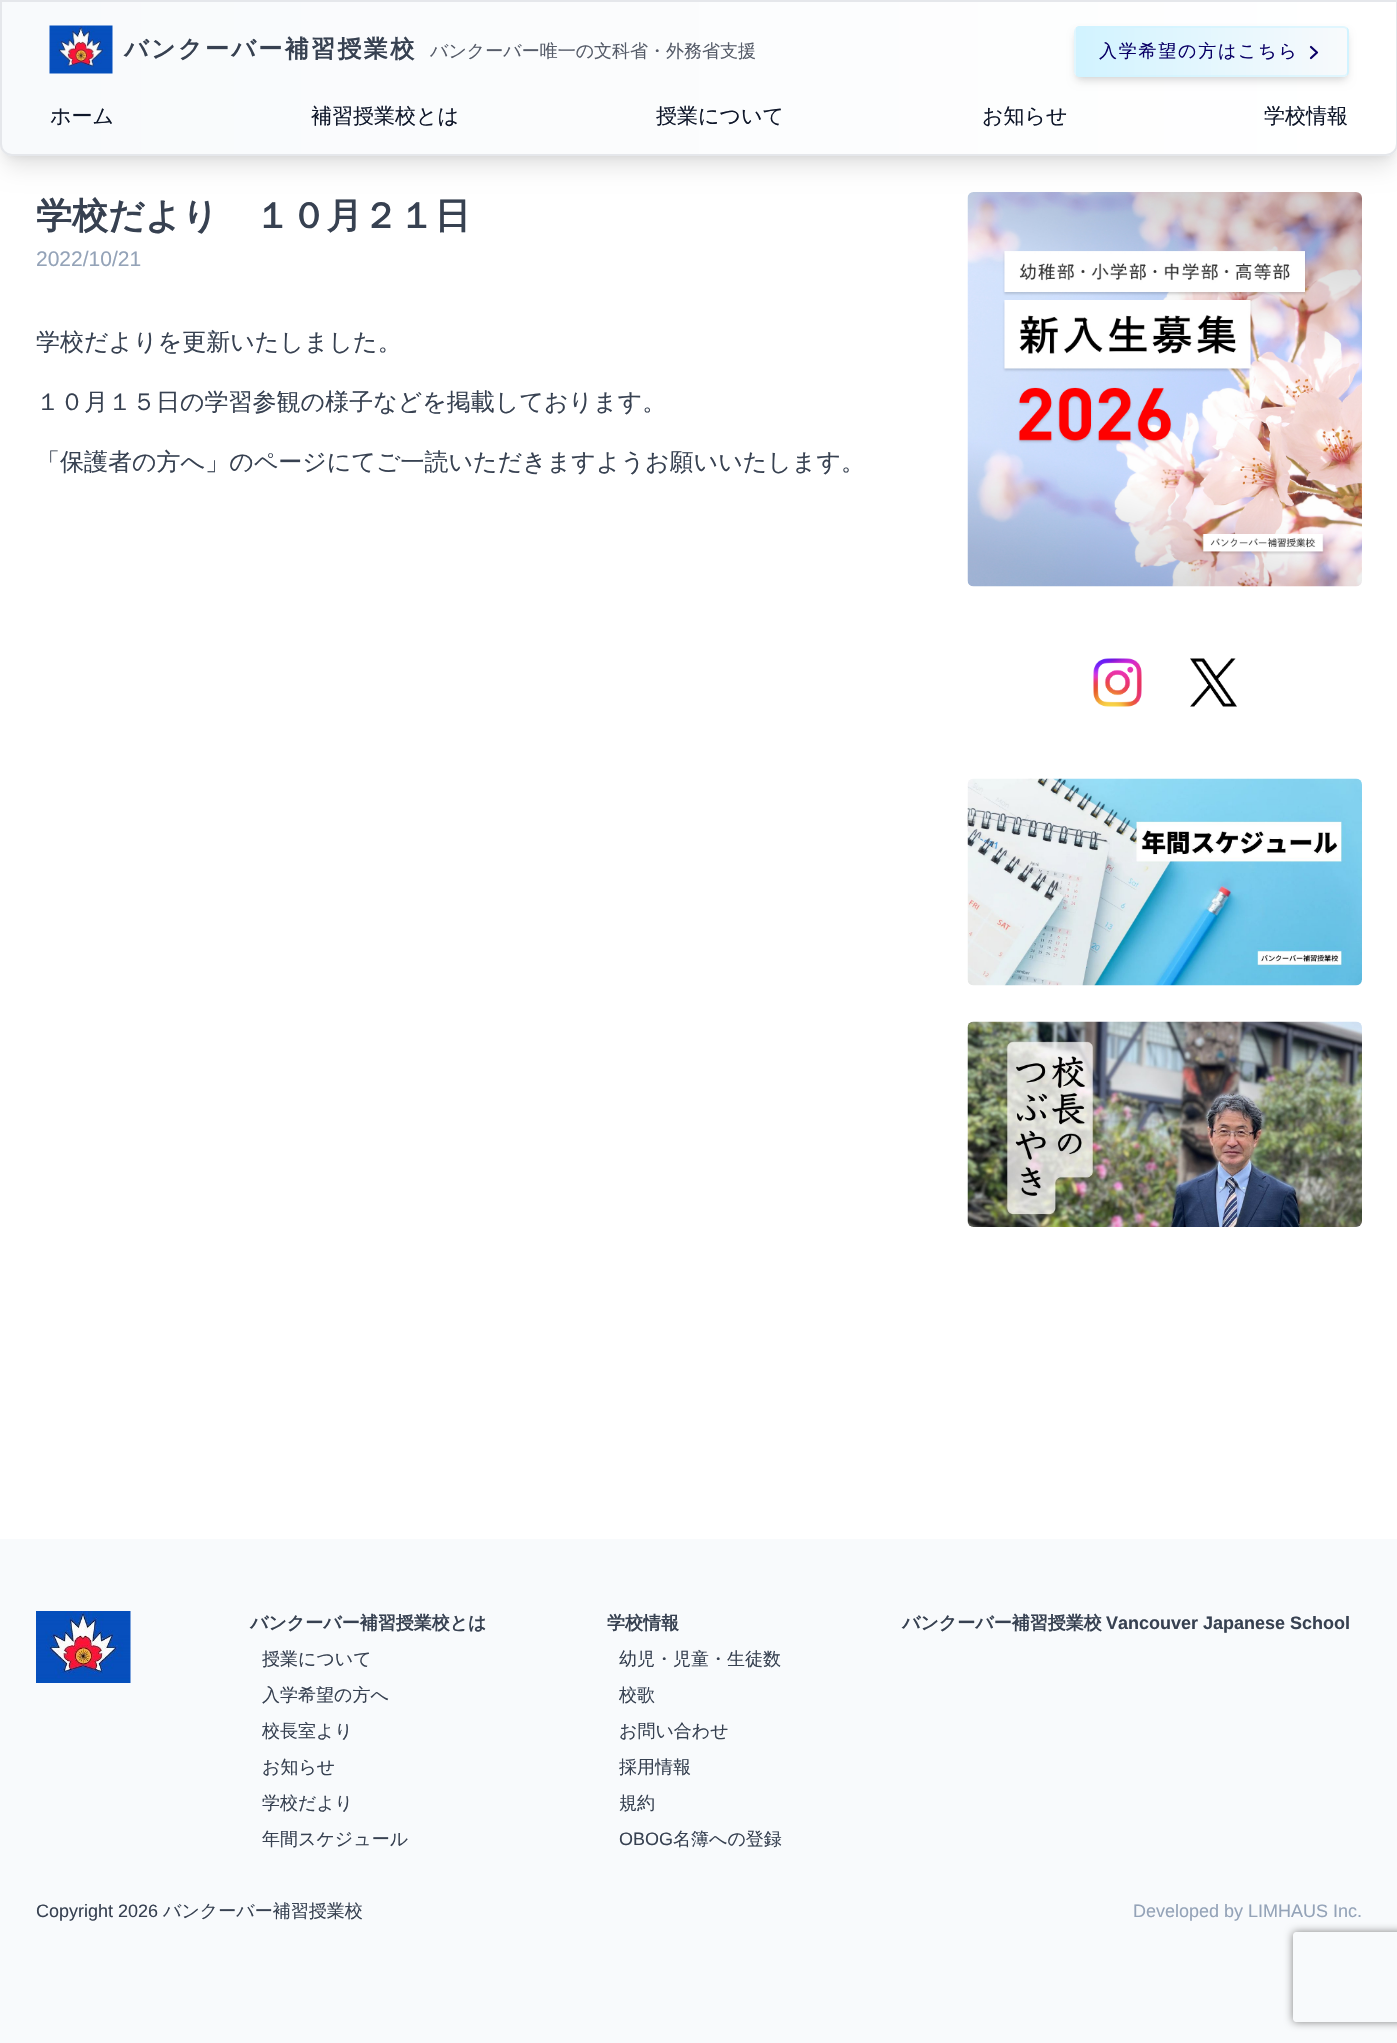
void draw(SkCanvas* canvas) {
	SkPaint paint;
	paint.setAntiAlias(true);
	auto spacedText = [&](const char* s, float x, float y, const SkFont& font, const SkPaint& ink, float letter, float word) {
		std::vector<SkGlyphID> glyphs(font.countText(s, strlen(s), SkTextEncoding::kUTF8));
		std::vector<float> xs(glyphs.size());
		font.textToGlyphs(s, strlen(s), SkTextEncoding::kUTF8, glyphs);
		font.getXPos(glyphs, xs, x);
		float extra = 0;
		for (size_t i = 0; i < glyphs.size(); i++) {
			xs[i] += extra;
			extra += letter + word * (glyphs[i] == font.unicharToGlyph(' '));
		}
		canvas->drawTextBlob(SkTextBlob::MakeFromPosHGlyphs(glyphs, xs, y, font), 0, 0, ink);
	};
	auto svgPath = [&](const char* data, bool evenOdd = false) {
		SkPath result = *SkParsePath::FromSVGString(data);
		if (evenOdd) result.setFillType(SkPathFillType::kEvenOdd);
		return result;
	};
	canvas->clear(0xffffffff);
	paint.setColor(0x1a000000);
	paint.setMaskFilter(SkMaskFilter::MakeBlur(kNormal_SkBlurStyle, 4.5));
	canvas->drawRoundRect(SkRect::MakeXYWH(6, 12, 1386, 144), 6, 6, paint);
	paint.setMaskFilter(nullptr);
	canvas->drawImageRect(SkImages::DeferredFromEncodedData(SkData::MakeFromFileName("img2.png")), SkRect::MakeXYWH(967, 192, 395, 395), SkSamplingOptions());
	paint.setMaskFilter(SkMaskFilter::MakeBlur(kNormal_SkBlurStyle, 11));
	canvas->drawRoundRect(SkRect::MakeXYWH(5, 20, 1389, 147), 8, 8, paint);
	paint.setMaskFilter(nullptr);
	canvas->save();
	canvas->clipPath(svgPath("M0 0H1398V144C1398 150.5 1392.5 156 1386 156H12C5.5 156 0 150.5 0 144Z"), true);
	{
		const SkColor colors[] = {0xfff8fafc, 0xffffffff};
		const float stops[] = {0, 1};
		const SkPoint ends[] = {{1.5, 78}, {1397, 78}};
		paint.setShader(SkGradientShader::MakeLinear(ends, colors, stops, 2, SkTileMode::kClamp));
		paint.setAlpha(255);
	}
	canvas->drawRect(SkRect::MakeXYWH(2, 2, 1395, 154), paint);
	canvas->restore();
	paint.setStroke(true);
	paint.setStrokeWidth(2);
	paint.setShader(nullptr);
	paint.setColor(0xffe5e7eb);
	canvas->drawPath(svgPath("M1 1H1397V144C1397 150 1392 155 1386 155H12C6 155 1 150 1 144Z"), paint);
	canvas->drawImageRect(SkImages::DeferredFromEncodedData(SkData::MakeFromFileName("img1.png")), SkRect::MakeXYWH(49, 25, 64, 49), SkSamplingOptions());
	SkFont f1(fontMgr->matchFamilyStyle("WenQuanYi Zen Hei", SkFontStyle::Bold()), 24);
	f1.setSubpixel(true);
	paint.setStroke(false);
	paint.setColor(0xff374151);
	spacedText("バンクーバー補習授業校", 124, 57, f1, paint, 2.4, 0);
	SkFont f2(fontMgr->matchFamilyStyle("WenQuanYi Zen Hei", SkFontStyle(500, SkFontStyle::kNormal_Width, SkFontStyle::kUpright_Slant)), 18);
	f2.setSubpixel(true);
	paint.setColor(0xff565c69);
	canvas->drawString("バンクーバー唯一の文科省・外務省支援", 430, 57, f2, paint);
	paint.setColor(0x1a000000);
	paint.setMaskFilter(SkMaskFilter::MakeBlur(kNormal_SkBlurStyle, 3));
	canvas->drawRoundRect(SkRect::MakeXYWH(1077, 32, 269, 45), 3, 3, paint);
	paint.setMaskFilter(nullptr);
	paint.setMaskFilter(SkMaskFilter::MakeBlur(kNormal_SkBlurStyle, 4.5));
	canvas->drawRoundRect(SkRect::MakeXYWH(1076, 33, 271, 48), 5, 5, paint);
	paint.setMaskFilter(nullptr);
	canvas->save();
	canvas->clipPath(svgPath("M1080 26H1343C1346.5 26 1349 28.5 1349 32V71C1349 74.5 1346.5 77 1343 77H1080C1076.5 77 1074 74.5 1074 71V32C1074 28.5 1076.5 26 1080 26Z"), true);
	{
		const SkColor colors[] = {0xffd1f3ff, 0xfff8fafc};
		const float stops[] = {0, 1};
		const SkPoint ends[] = {{804, 51}, {1076, 51}};
		paint.setShader(SkGradientShader::MakeLinear(ends, colors, stops, 2, SkTileMode::kClamp));
		paint.setAlpha(255);
	}
	canvas->drawRect(SkRect::MakeXYWH(1074, 26, 2, 51), paint);
	{
		const SkColor colors[] = {0xffd1f3ff, 0xfff8fafc};
		const float stops[] = {0, 1};
		const SkPoint ends[] = {{1076, 51}, {1347, 51}};
		paint.setShader(SkGradientShader::MakeLinear(ends, colors, stops, 2, SkTileMode::kClamp));
		paint.setAlpha(255);
	}
	canvas->drawRect(SkRect::MakeXYWH(1076, 26, 271, 51), paint);
	{
		const SkColor colors[] = {0xffd1f3ff, 0xfff8fafc};
		const float stops[] = {0, 1};
		const SkPoint ends[] = {{1347, 51}, {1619, 51}};
		paint.setShader(SkGradientShader::MakeLinear(ends, colors, stops, 2, SkTileMode::kClamp));
		paint.setAlpha(255);
	}
	canvas->drawRect(SkRect::MakeXYWH(1347, 26, 2, 51), paint);
	canvas->restore();
	paint.setStroke(true);
	paint.setShader(nullptr);
	paint.setColor(0x99d1f3ff);
	canvas->drawRoundRect(SkRect::MakeXYWH(1075, 27, 273, 49), 5, 5, paint);
	paint.setStroke(false);
	paint.setColor(0xff0a0066);
	spacedText("入学希望の方はこちら", 1099, 57, f2, paint, 1.75, 0);
	paint.setStroke(true);
	paint.setStrokeWidth(2.2);
	paint.setStrokeCap(SkPaint::kRound_Cap);
	paint.setStrokeJoin(SkPaint::kRound_Join);
	canvas->drawPath(svgPath("M1311 47L1317 52.5L1311 58"), paint);
	SkFont f3(fontMgr->matchFamilyStyle("WenQuanYi Zen Hei", SkFontStyle(500, SkFontStyle::kNormal_Width, SkFontStyle::kUpright_Slant)), 21);
	f3.setSubpixel(true);
	paint.setStroke(false);
	paint.setColor(0xff0f172a);
	canvas->drawString("ホーム", 50, 123, f3, paint);
	canvas->drawString("補習授業校とは", 311, 123, f3, paint);
	canvas->drawString("授業について", 656, 123, f3, paint);
	canvas->drawString("お知らせ", 982, 123, f3, paint);
	canvas->drawString("学校情報", 1264, 123, f3, paint);
	SkFont f4(fontMgr->matchFamilyStyle("WenQuanYi Zen Hei", SkFontStyle::Bold()), 36);
	f4.setSubpixel(true);
	paint.setColor(0xff374151);
	canvas->drawString("学校だより　１０月２１日", 36, 228, f4, paint);
	SkFont f5(fontMgr->matchFamilyStyle("Liberation Sans", SkFontStyle::Normal()), 21);
	f5.setSubpixel(true);
	paint.setColor(0xff94a3b8);
	canvas->drawString("2022/10/21", 36, 266, f5, paint);
	SkFont f6(fontMgr->matchFamilyStyle("WenQuanYi Zen Hei", SkFontStyle(500, SkFontStyle::kNormal_Width, SkFontStyle::kUpright_Slant)), 24);
	f6.setSubpixel(true);
	paint.setColor(0xff374151);
	canvas->drawString("学校だよりを更新いたしました。", 36, 350, f6, paint);
	canvas->drawString("１０月１５日の学習参観の様子などを掲載しております。", 36, 410, f6, paint);
	canvas->drawString("「保護者の方へ」のページにてご一読いただきますようお願いいたします。", 36, 470, f6, paint);
	canvas->drawImageRect(SkImages::DeferredFromEncodedData(SkData::MakeFromFileName("img3.png")), SkRect::MakeXYWH(1093, 658, 49, 49), SkSamplingOptions());
	canvas->drawImageRect(SkImages::DeferredFromEncodedData(SkData::MakeFromFileName("img4.png")), SkRect::MakeXYWH(1190, 658, 47, 49), SkSamplingOptions());
	canvas->drawImageRect(SkImages::DeferredFromEncodedData(SkData::MakeFromFileName("img5.png")), SkRect::MakeXYWH(967, 778, 395, 208), SkSamplingOptions());
	canvas->drawImageRect(SkImages::DeferredFromEncodedData(SkData::MakeFromFileName("img6.png")), SkRect::MakeXYWH(967, 1021, 395, 206), SkSamplingOptions());
	paint.setColor(0xfff8fafc);
	canvas->drawRect(SkRect::MakeXYWH(0, 1539, 1397, 504), paint);
	canvas->drawImageRect(SkImages::DeferredFromEncodedData(SkData::MakeFromFileName("img7.png")), SkRect::MakeXYWH(36, 1611, 95, 72), SkSamplingOptions());
	SkFont f7(fontMgr->matchFamilyStyle("WenQuanYi Zen Hei", SkFontStyle::Bold()), 18);
	f7.setSubpixel(true);
	paint.setColor(0xff374151);
	canvas->drawString("バンクーバー補習授業校とは", 250, 1629, f7, paint);
	canvas->drawString("授業について", 262, 1665, f2, paint);
	canvas->drawString("入学希望の方へ", 262, 1701, f2, paint);
	canvas->drawString("校長室より", 262, 1737, f2, paint);
	canvas->drawString("お知らせ", 262, 1773, f2, paint);
	canvas->drawString("学校だより", 262, 1809, f2, paint);
	canvas->drawString("年間スケジュール", 262, 1845, f2, paint);
	canvas->drawString("学校情報", 607, 1629, f7, paint);
	canvas->drawString("幼児・児童・生徒数", 619, 1665, f2, paint);
	canvas->drawString("校歌", 619, 1701, f2, paint);
	canvas->drawString("お問い合わせ", 619, 1737, f2, paint);
	canvas->drawString("採用情報", 619, 1773, f2, paint);
	canvas->drawString("規約", 619, 1809, f2, paint);
	SkFont f8(fontMgr->matchFamilyStyle("Liberation Sans", SkFontStyle::Normal()), 18);
	f8.setSubpixel(true);
	canvas->drawString("OBOG", 619, 1845, f8, paint);
	canvas->drawString("名簿への登録", 673, 1845, f2, paint);
	canvas->drawString("バンクーバー補習授業校", 902, 1629, f7, paint);
	SkFont f9(fontMgr->matchFamilyStyle("Liberation Sans", SkFontStyle::Bold()), 18);
	f9.setSubpixel(true);
	canvas->drawString("Vancouver Japanese School", 1106, 1629, f9, paint);
	canvas->drawString("Copyright 2026", 36, 1917, f8, paint);
	canvas->drawString("バンクーバー補習授業校", 163, 1917, f2, paint);
	paint.setColor(0xff94a3b8);
	canvas->drawString("Developed by LIMHAUS Inc.", 1133, 1917, f8, paint);
	canvas->save();
	canvas->clipPath(svgPath("M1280 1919H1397V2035H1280ZM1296 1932H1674C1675.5 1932 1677 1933.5 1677 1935V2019C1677 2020.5 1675.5 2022 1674 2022H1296C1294.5 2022 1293 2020.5 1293 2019V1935C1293 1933.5 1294.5 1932 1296 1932Z", true), true);
	paint.setColor(0xff808080);
	paint.setMaskFilter(SkMaskFilter::MakeBlur(kNormal_SkBlurStyle, 4));
	canvas->drawRoundRect(SkRect::MakeXYWH(1293, 1932, 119, 90), 3, 3, paint);
	paint.setMaskFilter(nullptr);
	canvas->restore();
}
